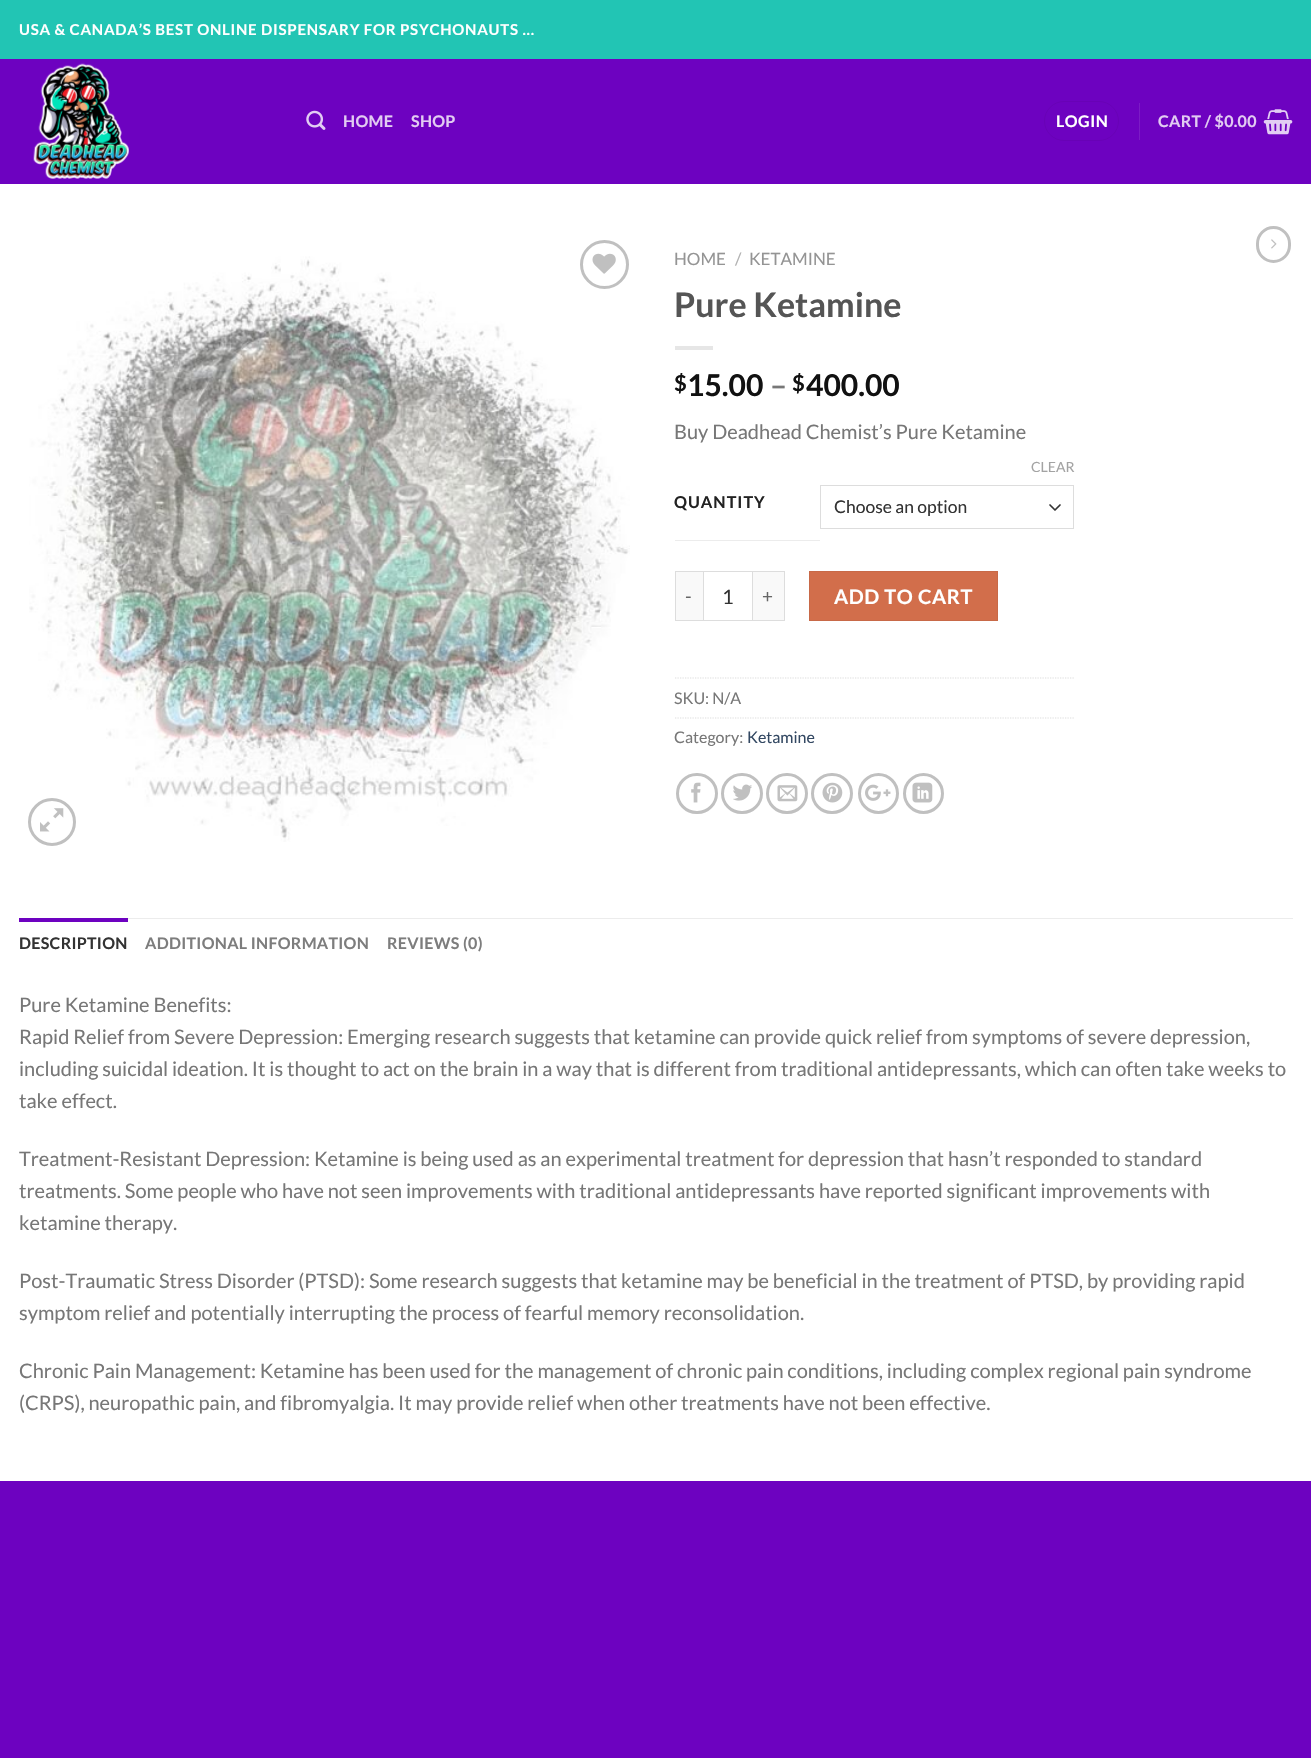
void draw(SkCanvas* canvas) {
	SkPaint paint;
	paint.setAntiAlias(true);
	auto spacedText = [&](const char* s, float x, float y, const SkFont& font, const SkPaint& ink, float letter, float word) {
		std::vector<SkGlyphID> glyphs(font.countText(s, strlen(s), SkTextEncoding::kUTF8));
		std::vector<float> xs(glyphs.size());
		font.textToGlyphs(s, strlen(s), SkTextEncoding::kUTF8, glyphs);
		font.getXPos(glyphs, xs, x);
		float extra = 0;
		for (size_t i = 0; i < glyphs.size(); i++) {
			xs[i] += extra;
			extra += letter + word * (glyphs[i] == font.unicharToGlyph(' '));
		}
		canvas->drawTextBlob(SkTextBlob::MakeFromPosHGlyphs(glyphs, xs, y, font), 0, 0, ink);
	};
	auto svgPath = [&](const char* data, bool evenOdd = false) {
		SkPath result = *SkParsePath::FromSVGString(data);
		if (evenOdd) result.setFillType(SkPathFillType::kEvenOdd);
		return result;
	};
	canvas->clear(0xff6d02c0);
	paint.setColor(0xffffffff);
	canvas->drawRect(SkRect::MakeXYWH(0, 184, 1311, 1297), paint);
	paint.setColor(0xff22c5b4);
	canvas->drawRect(SkRect::MakeXYWH(0, 0, 1311, 59), paint);
	SkFont f1(fontMgr->matchFamilyStyle("Lato", SkFontStyle::Bold()), 15);
	f1.setSubpixel(true);
	paint.setColor(0xffffffff);
	spacedText("USA & CANADA’S BEST ONLINE DISPENSARY FOR PSYCHONAUTS ...", 19, 35, f1, paint, 0.75, 0);
	canvas->drawImageRect(SkImages::DeferredFromEncodedData(SkData::MakeFromFileName("img1.png")), SkRect::MakeXYWH(33, 63, 96, 116), SkSamplingOptions());
	canvas->drawImageRect(SkImages::DeferredFromEncodedData(SkData::MakeFromFileName("img2.png")), SkRect::MakeXYWH(306, 110, 20, 20), SkSamplingOptions());
	SkFont f2(fontMgr->matchFamilyStyle("Lato", SkFontStyle::Bold()), 16);
	f2.setSubpixel(true);
	paint.setColor(0xffe2ccf2);
	spacedText("HOME", 343, 127, f2, paint, 0.3, 0);
	spacedText("SHOP", 411, 127, f2, paint, 0.3, 0);
	paint.setStroke(true);
	paint.setStrokeWidth(1);
	paint.setColor(0xff6802b6);
	canvas->drawRoundRect(SkRect::MakeXYWH(1044.5, 101.5, 74, 39), 19.5, 19.5, paint);
	paint.setStroke(false);
	paint.setColor(0xffffffff);
	spacedText("LOGIN", 1056, 127, f2, paint, 0.5, 0);
	paint.setColor(0xff7c1bc6);
	canvas->drawRect(SkRect::MakeXYWH(1139, 103, 1, 37), paint);
	paint.setColor(0xffe2ccf2);
	spacedText("CART / $0.00", 1158, 127, f2, paint, 0.3, 0);
	canvas->drawImageRect(SkImages::DeferredFromEncodedData(SkData::MakeFromFileName("img3.png")), SkRect::MakeXYWH(1263, 109, 30, 26), SkSamplingOptions());
	canvas->drawImageRect(SkImages::DeferredFromEncodedData(SkData::MakeFromFileName("img5.png")), SkRect::MakeXYWH(29, 256, 601, 586), SkSamplingOptions());
	paint.setStroke(true);
	paint.setStrokeWidth(3);
	paint.setColor(0xffc0c0c0);
	canvas->drawCircle(604.5, 264.5, 23, paint);
	canvas->drawImageRect(SkImages::DeferredFromEncodedData(SkData::MakeFromFileName("img4.png")), SkRect::MakeXYWH(592, 253, 24, 21), SkSamplingOptions());
	canvas->drawCircle(52, 822, 22.5, paint);
	canvas->drawImageRect(SkImages::DeferredFromEncodedData(SkData::MakeFromFileName("img6.png")), SkRect::MakeXYWH(40, 808, 24, 24), SkSamplingOptions());
	SkFont f3(fontMgr->matchFamilyStyle("Lato", SkFontStyle::Normal()), 17);
	f3.setSubpixel(true);
	paint.setStroke(false);
	paint.setColor(0xff949494);
	canvas->drawString("HOME", 674, 265, f3, paint);
	paint.setColor(0xffb2b2b2);
	canvas->drawString("/", 735, 265, f3, paint);
	paint.setColor(0xff949494);
	canvas->drawString("KETAMINE", 749, 265, f3, paint);
	SkFont f4(fontMgr->matchFamilyStyle("Lato", SkFontStyle::Bold()), 34);
	f4.setSubpixel(true);
	paint.setColor(0xff555555);
	canvas->drawString("Pure Ketamine", 674, 317, f4, paint);
	paint.setColor(0xffe6e6e6);
	canvas->drawRect(SkRect::MakeXYWH(675, 346, 38, 4), paint);
	SkFont f5(fontMgr->matchFamilyStyle("Lato", SkFontStyle::Bold()), 22);
	f5.setSubpixel(true);
	paint.setColor(0xff111111);
	canvas->drawString("$", 674, 391, f5, paint);
	SkFont f6(fontMgr->matchFamilyStyle("Lato", SkFontStyle::Bold()), 30);
	f6.setSubpixel(true);
	canvas->drawString("15.00", 687, 396, f6, paint);
	paint.setColor(0xff777777);
	canvas->drawString("–", 770, 396, f6, paint);
	paint.setColor(0xff111111);
	canvas->drawString("$", 792, 391, f5, paint);
	canvas->drawString("400.00", 806, 396, f6, paint);
	SkFont f7(fontMgr->matchFamilyStyle("Lato", SkFontStyle::Normal()), 20);
	f7.setSubpixel(true);
	paint.setColor(0xff777777);
	canvas->drawString("Buy Deadhead Chemist’s Pure Ketamine", 674, 439, f7, paint);
	paint.setColor(0xffececec);
	canvas->drawRect(SkRect::MakeXYWH(675, 540, 145, 1), paint);
	SkFont f8(fontMgr->matchFamilyStyle("Lato", SkFontStyle::Bold()), 16.25);
	f8.setSubpixel(true);
	paint.setColor(0xff222222);
	spacedText("QUANTITY", 674, 508, f8, paint, 1, 0);
	SkFont f9(fontMgr->matchFamilyStyle("Lato", SkFontStyle::Normal()), 14);
	f9.setSubpixel(true);
	paint.setColor(0xffa3a3a3);
	canvas->drawString("CLEAR", 1031, 472, f9, paint);
	paint.setStroke(true);
	paint.setStrokeWidth(1.7);
	paint.setStrokeCap(SkPaint::kRound_Cap);
	paint.setStrokeJoin(SkPaint::kRound_Join);
	paint.setColor(0xff333333);
	canvas->drawPath(svgPath("M1050 505L1055 510L1060 505"), paint);
	paint.setStrokeWidth(1);
	paint.setStrokeCap(SkPaint::kButt_Cap);
	paint.setStrokeJoin(SkPaint::kMiter_Join);
	paint.setColor(0xffdddddd);
	canvas->drawRect(SkRect::MakeXYWH(820.5, 485.5, 253, 43), paint);
	SkFont f10(fontMgr->matchFamilyStyle("Lato", SkFontStyle::Normal()), 17.5);
	f10.setSubpixel(true);
	paint.setStroke(false);
	paint.setColor(0xff333333);
	canvas->drawString("Choose an option", 834, 513, f10, paint);
	paint.setColor(0xfff9f9f9);
	canvas->drawRect(SkRect::MakeXYWH(676, 572, 27, 48), paint);
	paint.setColor(0xffdddddd);
	canvas->drawRect(SkRect::MakeXYWH(675, 571, 28, 1), paint);
	canvas->drawRect(SkRect::MakeXYWH(675, 620, 28, 1), paint);
	canvas->drawRect(SkRect::MakeXYWH(675, 571, 1, 50), paint);
	SkFont f11(fontMgr->matchFamilyStyle("Lato", SkFontStyle::Normal()), 19);
	f11.setSubpixel(true);
	paint.setColor(0xff666666);
	spacedText("-", 685, 603, f11, paint, 1, 0);
	paint.setStroke(true);
	paint.setColor(0xffdddddd);
	canvas->drawRect(SkRect::MakeXYWH(703.5, 571.5, 49, 49), paint);
	paint.setStroke(false);
	paint.setColor(0xff333333);
	canvas->drawString("1", 722, 604, f7, paint);
	paint.setColor(0xfff9f9f9);
	canvas->drawRect(SkRect::MakeXYWH(753, 572, 31, 48), paint);
	paint.setColor(0xffdddddd);
	canvas->drawRect(SkRect::MakeXYWH(753, 571, 32, 1), paint);
	canvas->drawRect(SkRect::MakeXYWH(784, 571, 1, 50), paint);
	canvas->drawRect(SkRect::MakeXYWH(753, 620, 32, 1), paint);
	paint.setColor(0xff666666);
	spacedText("+", 762, 603, f11, paint, 1, 0);
	paint.setColor(0xffd26e4b);
	canvas->drawRect(SkRect::MakeXYWH(809.5, 571.5, 188, 49), paint);
	paint.setStroke(true);
	paint.setColor(0xffc86947);
	canvas->drawRect(SkRect::MakeXYWH(809.5, 571.5, 188, 49), paint);
	SkFont f12(fontMgr->matchFamilyStyle("Lato", SkFontStyle::Bold()), 20);
	f12.setSubpixel(true);
	paint.setStroke(false);
	paint.setColor(0xffffffff);
	spacedText("ADD TO CART", 834, 604, f12, paint, 0.6, 0);
	paint.setStroke(true);
	paint.setStrokeWidth(1.2);
	paint.setColor(0xffdddddd);
	paint.setPathEffect(SkDashPathEffect::Make({{1.25f, 1.25f}}, 0));
	canvas->drawPath(svgPath("M675 678H1074"), paint);
	paint.setPathEffect(nullptr);
	SkFont f13(fontMgr->matchFamilyStyle("Lato", SkFontStyle::Normal()), 16);
	f13.setSubpixel(true);
	paint.setStroke(false);
	paint.setColor(0xff777777);
	canvas->drawString("SKU: N/A", 674, 704, f13, paint);
	paint.setStroke(true);
	paint.setColor(0xffdddddd);
	paint.setPathEffect(SkDashPathEffect::Make({{1.25f, 1.25f}}, 0));
	canvas->drawPath(svgPath("M675 718H1074"), paint);
	paint.setPathEffect(nullptr);
	paint.setStroke(false);
	paint.setColor(0xff777777);
	canvas->drawString("Category:", 674, 743, f13, paint);
	paint.setColor(0xff334862);
	canvas->drawString("Ketamine", 747, 743, f13, paint);
	paint.setStroke(true);
	paint.setStrokeWidth(3);
	paint.setColor(0xffc0c0c0);
	canvas->drawRoundRect(SkRect::MakeXYWH(677.5, 774.5, 39, 38), 19, 19, paint);
	canvas->drawImageRect(SkImages::DeferredFromEncodedData(SkData::MakeFromFileName("img7.png")), SkRect::MakeXYWH(691, 782, 10, 21), SkSamplingOptions());
	canvas->drawRoundRect(SkRect::MakeXYWH(722.5, 774.5, 39, 38), 19, 19, paint);
	canvas->drawImageRect(SkImages::DeferredFromEncodedData(SkData::MakeFromFileName("img8.png")), SkRect::MakeXYWH(733, 784, 19, 17), SkSamplingOptions());
	canvas->drawRoundRect(SkRect::MakeXYWH(767.5, 774.5, 39, 38), 19, 19, paint);
	canvas->drawImageRect(SkImages::DeferredFromEncodedData(SkData::MakeFromFileName("img9.png")), SkRect::MakeXYWH(777, 785, 21, 17), SkSamplingOptions());
	canvas->drawRoundRect(SkRect::MakeXYWH(812.5, 774.5, 39, 38), 19, 19, paint);
	canvas->drawImageRect(SkImages::DeferredFromEncodedData(SkData::MakeFromFileName("img10.png")), SkRect::MakeXYWH(822, 782, 21, 21), SkSamplingOptions());
	canvas->drawCircle(878.5, 793.5, 19, paint);
	canvas->drawImageRect(SkImages::DeferredFromEncodedData(SkData::MakeFromFileName("img11.png")), SkRect::MakeXYWH(865, 784, 26, 17), SkSamplingOptions());
	canvas->drawCircle(923.5, 793.5, 19, paint);
	canvas->drawImageRect(SkImages::DeferredFromEncodedData(SkData::MakeFromFileName("img12.png")), SkRect::MakeXYWH(912, 782, 21, 21), SkSamplingOptions());
	canvas->drawRoundRect(SkRect::MakeXYWH(1257.5, 227.5, 32, 34), 16, 16, paint);
	canvas->drawImageRect(SkImages::DeferredFromEncodedData(SkData::MakeFromFileName("img13.png")), SkRect::MakeXYWH(1271, 239, 6, 10), SkSamplingOptions());
	paint.setStroke(false);
	paint.setColor(0xffececec);
	canvas->drawRect(SkRect::MakeXYWH(128, 918, 1165, 1), paint);
	paint.setColor(0xff6d02c0);
	canvas->drawRect(SkRect::MakeXYWH(19, 918, 109, 4), paint);
	paint.setColor(0xff333333);
	spacedText("DESCRIPTION", 19, 949, f2, paint, 0.3, 0);
	paint.setColor(0xff7d7d7d);
	spacedText("ADDITIONAL INFORMATION", 145, 949, f2, paint, 0.3, 0);
	spacedText("REVIEWS (0)", 387, 949, f2, paint, 0.3, 0);
	paint.setColor(0xff777777);
	canvas->drawString("Pure Ketamine Benefits:", 19, 1012, f7, paint);
	canvas->drawString("Rapid Relief from Severe Depression: Emerging research suggests that ketamine can provide quick relief from symptoms of severe depression,", 19, 1044, f7, paint);
	canvas->drawString("including suicidal ideation. It is thought to act on the brain in a way that is different from traditional antidepressants, which can often take weeks to", 19, 1076, f7, paint);
	canvas->drawString("take effect.", 19, 1108, f7, paint);
	canvas->drawString("Treatment-Resistant Depression: Ketamine is being used as an experimental treatment for depression that hasn’t responded to standard", 19, 1166, f7, paint);
	canvas->drawString("treatments. Some people who have not seen improvements with traditional antidepressants have reported significant improvements with", 19, 1198, f7, paint);
	canvas->drawString("ketamine therapy.", 19, 1230, f7, paint);
	canvas->drawString("Post-Traumatic Stress Disorder (PTSD): Some research suggests that ketamine may be beneficial in the treatment of PTSD, by providing rapid", 19, 1288, f7, paint);
	canvas->drawString("symptom relief and potentially interrupting the process of fearful memory reconsolidation.", 19, 1320, f7, paint);
	canvas->drawString("Chronic Pain Management: Ketamine has been used for the management of chronic pain conditions, including complex regional pain syndrome", 19, 1378, f7, paint);
	canvas->drawString("(CRPS), neuropathic pain, and fibromyalgia. It may provide relief when other treatments have not been effective.", 19, 1410, f7, paint);
}
